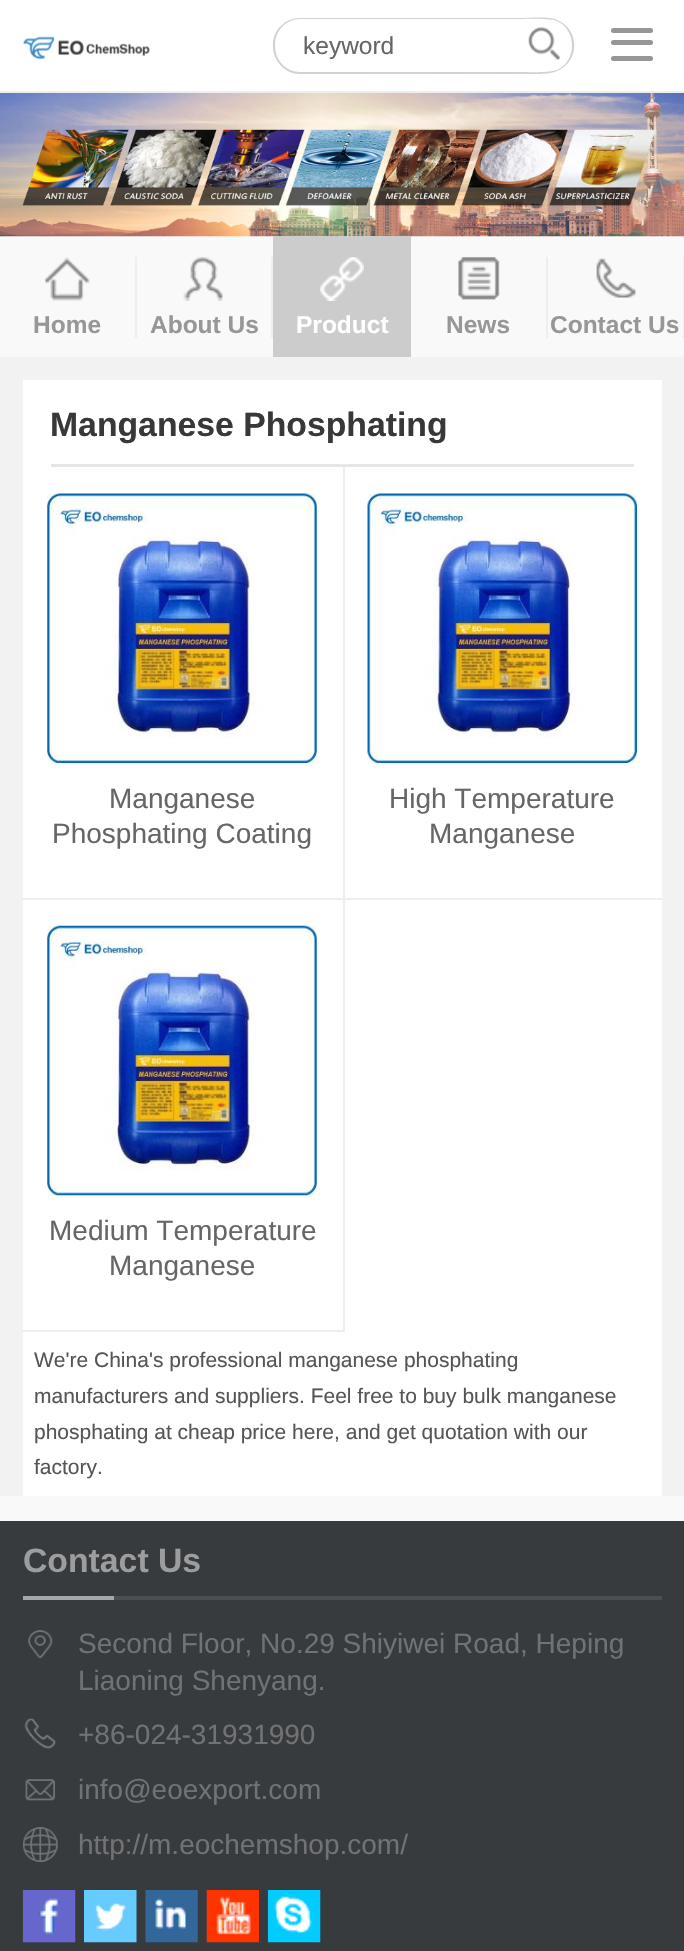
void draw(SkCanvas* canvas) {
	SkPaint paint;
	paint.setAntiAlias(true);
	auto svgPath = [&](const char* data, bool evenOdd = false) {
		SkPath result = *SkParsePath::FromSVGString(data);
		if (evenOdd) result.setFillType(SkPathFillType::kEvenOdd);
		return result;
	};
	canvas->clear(0xfff9f9f9);
	paint.setColor(0xffffffff);
	canvas->drawRect(SkRect::MakeXYWH(0, 0, 684, 91), paint);
	paint.setColor(0xffeeeeee);
	canvas->drawRect(SkRect::MakeXYWH(0, 91, 684, 2), paint);
	canvas->drawImageRect(SkImages::DeferredFromEncodedData(SkData::MakeFromFileName("img1.png")), SkRect::MakeXYWH(23, 36, 127, 24), SkSamplingOptions());
	paint.setColor(0xffd1d1d1);
	canvas->drawPath(svgPath("M300 18H520V74H300C285 74 273 61 273 46V45C273 30 285 18 300 18ZM300 19H520V72H300C286 72 275 60 275 46V45C275 31 286 19 300 19Z", true), paint);
	SkFont f1(fontMgr->matchFamilyStyle("Liberation Sans", SkFontStyle::Normal()), 24.5);
	f1.setSubpixel(true);
	paint.setColor(0xff666666);
	canvas->drawString("keyword", 303, 54, f1, paint);
	canvas->drawImageRect(SkImages::DeferredFromEncodedData(SkData::MakeFromFileName("img2.png")), SkRect::MakeXYWH(528, 27, 32, 33), SkSamplingOptions());
	paint.setColor(0xffd1d1d1);
	canvas->drawPath(svgPath("M520 18C530 18 549 16 557 20C580 29 580 62 557 71C549 75 530 74 520 74ZM520 19C529 19 548 18 557 21C577 30 577 61 557 70C548 73 529 72 520 72Z", true), paint);
	paint.setColor(0xff979797);
	canvas->drawRoundRect(SkRect::MakeXYWH(611, 28, 42, 5), 2.5, 2.5, paint);
	canvas->drawRoundRect(SkRect::MakeXYWH(611, 40, 42, 5), 2.5, 2.5, paint);
	canvas->drawRoundRect(SkRect::MakeXYWH(611, 56, 42, 5), 2.5, 2.5, paint);
	canvas->drawImageRect(SkImages::DeferredFromEncodedData(SkData::MakeFromFileName("img3.png")), SkRect::MakeXYWH(0, 93, 684, 144), SkSamplingOptions());
	paint.setColor(0xffeeeeee);
	canvas->drawRect(SkRect::MakeXYWH(135, 257, 2, 81), paint);
	canvas->drawImageRect(SkImages::DeferredFromEncodedData(SkData::MakeFromFileName("img4.png")), SkRect::MakeXYWH(45, 257, 45, 44), SkSamplingOptions());
	SkFont f2(fontMgr->matchFamilyStyle("Liberation Sans", SkFontStyle::Bold()), 24.5);
	f2.setSubpixel(true);
	paint.setColor(0xff979797);
	canvas->drawString("Home", 33, 333, f2, paint);
	paint.setColor(0xffeeeeee);
	canvas->drawRect(SkRect::MakeXYWH(271, 257, 2, 81), paint);
	canvas->drawImageRect(SkImages::DeferredFromEncodedData(SkData::MakeFromFileName("img5.png")), SkRect::MakeXYWH(183, 257, 40, 44), SkSamplingOptions());
	paint.setColor(0xff979797);
	canvas->drawString("About Us", 150, 333, f2, paint);
	paint.setColor(0xffcccccc);
	canvas->drawRect(SkRect::MakeXYWH(273, 236, 138, 121), paint);
	canvas->drawImageRect(SkImages::DeferredFromEncodedData(SkData::MakeFromFileName("img6.png")), SkRect::MakeXYWH(320, 257, 44, 44), SkSamplingOptions());
	paint.setColor(0xffffffff);
	canvas->drawString("Product", 296, 333, f2, paint);
	paint.setColor(0xffeeeeee);
	canvas->drawRect(SkRect::MakeXYWH(546, 257, 2, 81), paint);
	canvas->drawImageRect(SkImages::DeferredFromEncodedData(SkData::MakeFromFileName("img7.png")), SkRect::MakeXYWH(458, 257, 42, 43), SkSamplingOptions());
	paint.setColor(0xff979797);
	canvas->drawString("News", 446, 333, f2, paint);
	paint.setColor(0xffeeeeee);
	canvas->drawRect(SkRect::MakeXYWH(683, 257, 1, 81), paint);
	canvas->drawImageRect(SkImages::DeferredFromEncodedData(SkData::MakeFromFileName("img8.png")), SkRect::MakeXYWH(596, 258, 40, 40), SkSamplingOptions());
	paint.setColor(0xff979797);
	canvas->drawString("Contact Us", 550, 333, f2, paint);
	paint.setColor(0xfff2f2f2);
	canvas->drawRect(SkRect::MakeXYWH(0, 357, 684, 1139), paint);
	paint.setColor(0xffffffff);
	canvas->drawRect(SkRect::MakeXYWH(23, 380, 639, 87), paint);
	paint.setColor(0xffe6e6e6);
	canvas->drawRect(SkRect::MakeXYWH(51, 464, 583, 3), paint);
	SkFont f3(fontMgr->matchFamilyStyle("Liberation Sans", SkFontStyle::Bold()), 33.75);
	f3.setSubpixel(true);
	paint.setColor(0xff383838);
	canvas->drawString("Manganese Phosphating", 50, 436, f3, paint);
	paint.setColor(0xffffffff);
	canvas->drawRect(SkRect::MakeXYWH(23, 467, 639, 1029), paint);
	paint.setColor(0xffeeeeee);
	canvas->drawRect(SkRect::MakeXYWH(23, 898, 639, 2), paint);
	canvas->drawRect(SkRect::MakeXYWH(343, 467, 2, 865), paint);
	canvas->drawImageRect(SkImages::DeferredFromEncodedData(SkData::MakeFromFileName("img9.png")), SkRect::MakeXYWH(47, 493, 270, 270), SkSamplingOptions());
	SkFont f4(fontMgr->matchFamilyStyle("Liberation Sans", SkFontStyle::Normal()), 28);
	f4.setSubpixel(true);
	paint.setColor(0xff666666);
	canvas->drawString("Manganese", 109, 808, f4, paint);
	canvas->drawString("Phosphating Coating", 52, 843, f4, paint);
	canvas->drawImageRect(SkImages::DeferredFromEncodedData(SkData::MakeFromFileName("img10.png")), SkRect::MakeXYWH(367, 493, 270, 270), SkSamplingOptions());
	canvas->drawString("High Temperature", 389, 808, f4, paint);
	canvas->drawString("Manganese", 429, 843, f4, paint);
	paint.setColor(0xffeeeeee);
	canvas->drawRect(SkRect::MakeXYWH(23, 1330, 320, 2), paint);
	canvas->drawImageRect(SkImages::DeferredFromEncodedData(SkData::MakeFromFileName("img11.png")), SkRect::MakeXYWH(47, 925, 270, 271), SkSamplingOptions());
	paint.setColor(0xff666666);
	canvas->drawString("Medium Temperature", 49, 1240, f4, paint);
	canvas->drawString("Manganese", 109, 1275, f4, paint);
	SkFont f5(fontMgr->matchFamilyStyle("Liberation Sans", SkFontStyle::Normal()), 21);
	f5.setSubpixel(true);
	paint.setColor(0xff555555);
	canvas->drawString("We're China's professional manganese phosphating", 34, 1367, f5, paint);
	canvas->drawString("manufacturers and suppliers. Feel free to buy bulk manganese", 34, 1403, f5, paint);
	canvas->drawString("phosphating at cheap price here, and get quotation with our", 34, 1439, f5, paint);
	canvas->drawString("factory.", 34, 1474, f5, paint);
	paint.setColor(0xff373b3e);
	canvas->drawRect(SkRect::MakeXYWH(0, 1521, 684, 430), paint);
	paint.setColor(0xff9b9d9f);
	canvas->drawString("Contact Us", 23, 1572, f3, paint);
	paint.setColor(0xffa5a7a9);
	canvas->drawRect(SkRect::MakeXYWH(23, 1596, 91, 4), paint);
	paint.setColor(0xff4b4f52);
	canvas->drawRect(SkRect::MakeXYWH(114, 1596, 548, 4), paint);
	canvas->drawImageRect(SkImages::DeferredFromEncodedData(SkData::MakeFromFileName("img12.png")), SkRect::MakeXYWH(28, 1630, 25, 29), SkSamplingOptions());
	paint.setColor(0xff707274);
	canvas->drawString("Second Floor, No.29 Shiyiwei Road, Heping", 78, 1653, f4, paint);
	canvas->drawString("Liaoning Shenyang.", 78, 1690, f4, paint);
	canvas->drawImageRect(SkImages::DeferredFromEncodedData(SkData::MakeFromFileName("img13.png")), SkRect::MakeXYWH(24, 1718, 32, 31), SkSamplingOptions());
	canvas->drawString("+86-024-31931990", 78, 1744, f4, paint);
	canvas->drawImageRect(SkImages::DeferredFromEncodedData(SkData::MakeFromFileName("img14.png")), SkRect::MakeXYWH(25, 1779, 30, 22), SkSamplingOptions());
	canvas->drawString("info@eoexport.com", 78, 1799, f4, paint);
	canvas->drawImageRect(SkImages::DeferredFromEncodedData(SkData::MakeFromFileName("img15.png")), SkRect::MakeXYWH(23, 1827, 35, 35), SkSamplingOptions());
	canvas->drawString("http://m.eochemshop.com/", 78, 1854, f4, paint);
	canvas->drawImageRect(SkImages::DeferredFromEncodedData(SkData::MakeFromFileName("img16.png")), SkRect::MakeXYWH(22, 1890, 54, 53), SkSamplingOptions());
	canvas->drawImageRect(SkImages::DeferredFromEncodedData(SkData::MakeFromFileName("img17.png")), SkRect::MakeXYWH(84, 1890, 53, 53), SkSamplingOptions());
	canvas->drawImageRect(SkImages::DeferredFromEncodedData(SkData::MakeFromFileName("img18.png")), SkRect::MakeXYWH(145, 1890, 53, 53), SkSamplingOptions());
	canvas->drawImageRect(SkImages::DeferredFromEncodedData(SkData::MakeFromFileName("img19.png")), SkRect::MakeXYWH(206, 1890, 53, 53), SkSamplingOptions());
	canvas->drawImageRect(SkImages::DeferredFromEncodedData(SkData::MakeFromFileName("img20.png")), SkRect::MakeXYWH(267, 1890, 54, 53), SkSamplingOptions());
}
